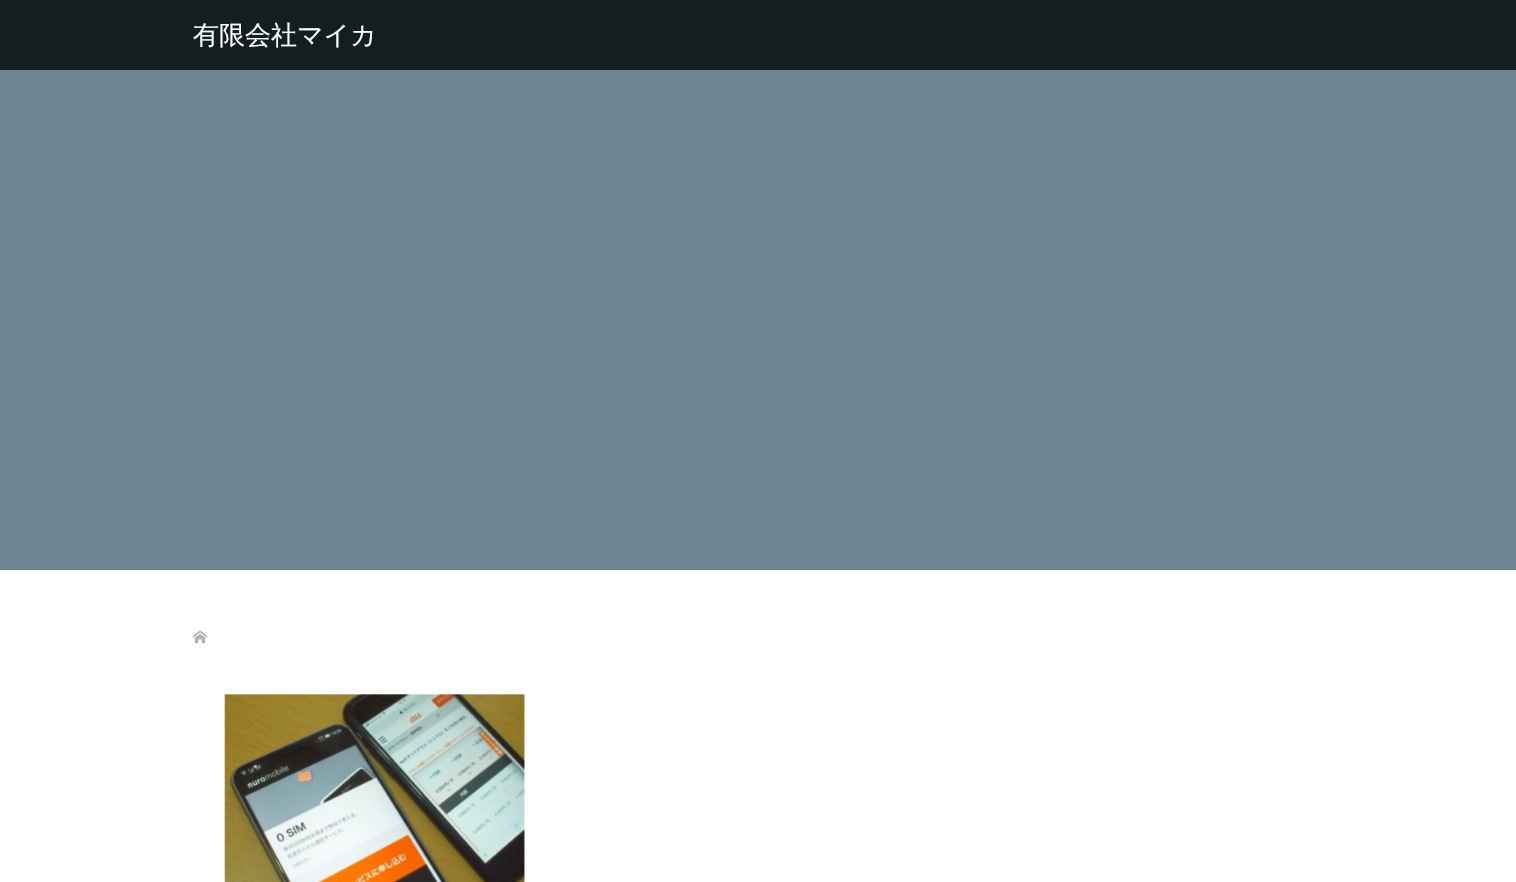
void draw(SkCanvas* canvas) {
	SkPaint paint;
	paint.setAntiAlias(true);
	canvas->clear(0xffffffff);
	paint.setColor(0xff121e1f);
	canvas->drawRect(SkRect::MakeXYWH(0, 0, 1516, 70), paint);
	SkFont f1(fontMgr->matchFamilyStyle("WenQuanYi Zen Hei", SkFontStyle(500, SkFontStyle::kNormal_Width, SkFontStyle::kUpright_Slant)), 26);
	f1.setSubpixel(true);
	paint.setColor(0xffffffff);
	canvas->drawString("有限会社マイカ", 193, 44, f1, paint);
	paint.setColor(0xff6d8491);
	canvas->drawRect(SkRect::MakeXYWH(0, 70, 1516, 500), paint);
	canvas->drawImageRect(SkImages::DeferredFromEncodedData(SkData::MakeFromFileName("img1.png")), SkRect::MakeXYWH(193, 630, 14, 13), SkSamplingOptions());
	canvas->drawImageRect(SkImages::DeferredFromEncodedData(SkData::MakeFromFileName("img2.png")), SkRect::MakeXYWH(224, 694, 301, 188), SkSamplingOptions());
}
